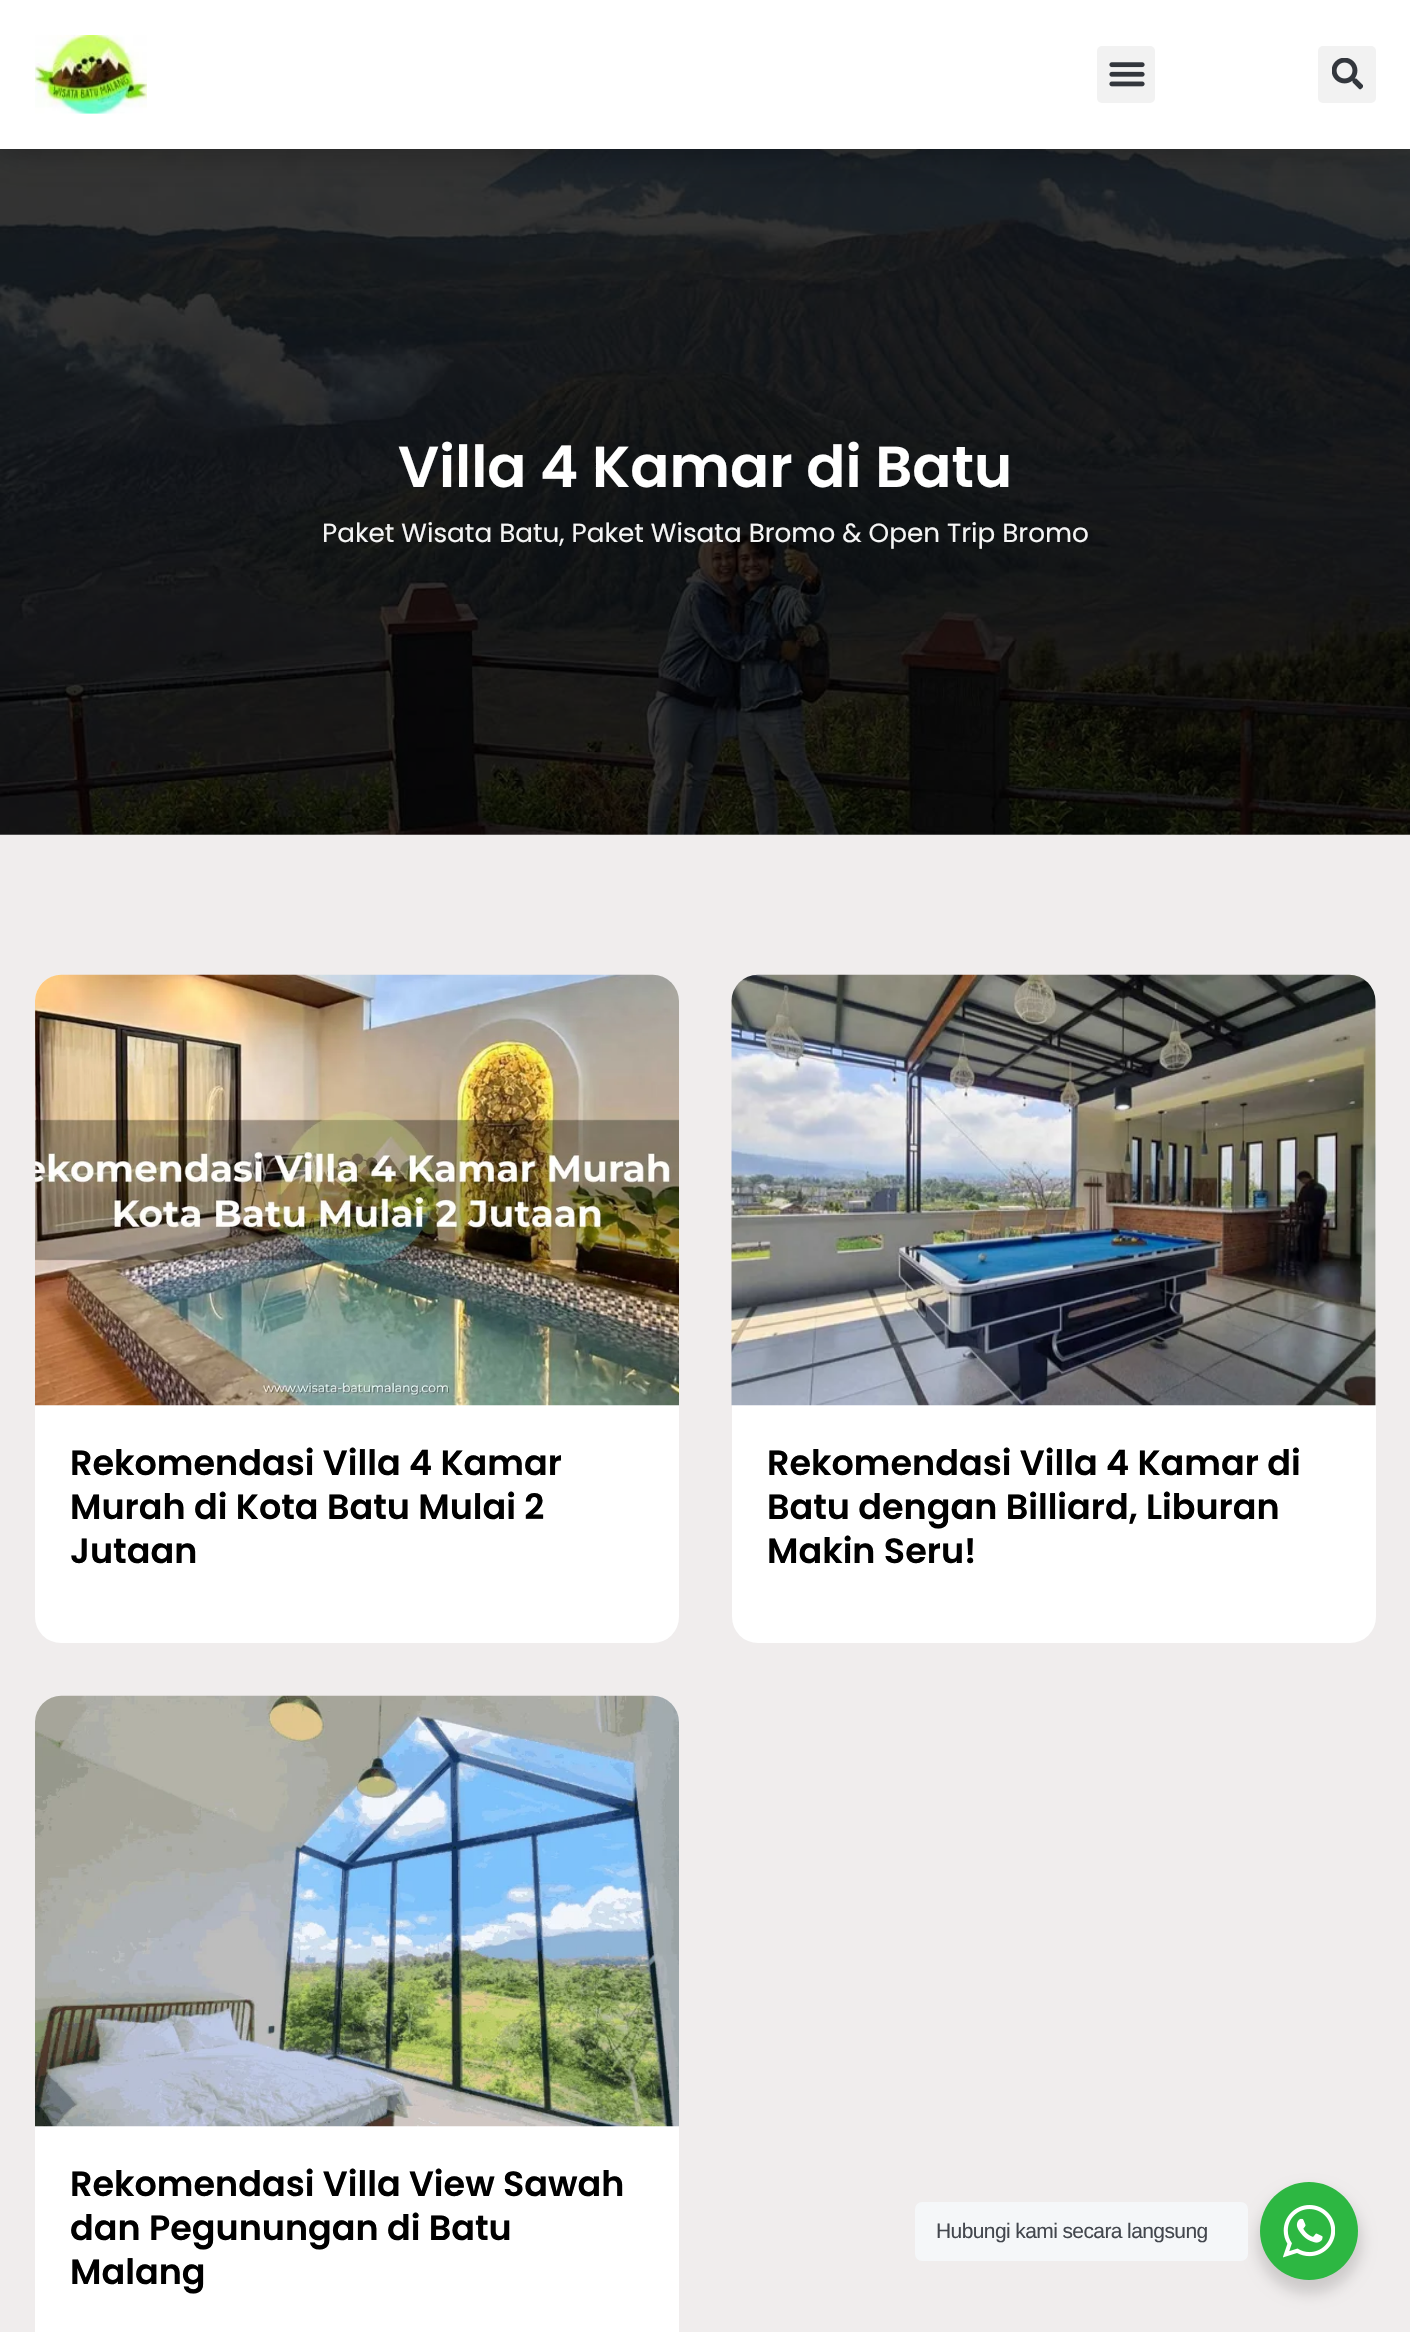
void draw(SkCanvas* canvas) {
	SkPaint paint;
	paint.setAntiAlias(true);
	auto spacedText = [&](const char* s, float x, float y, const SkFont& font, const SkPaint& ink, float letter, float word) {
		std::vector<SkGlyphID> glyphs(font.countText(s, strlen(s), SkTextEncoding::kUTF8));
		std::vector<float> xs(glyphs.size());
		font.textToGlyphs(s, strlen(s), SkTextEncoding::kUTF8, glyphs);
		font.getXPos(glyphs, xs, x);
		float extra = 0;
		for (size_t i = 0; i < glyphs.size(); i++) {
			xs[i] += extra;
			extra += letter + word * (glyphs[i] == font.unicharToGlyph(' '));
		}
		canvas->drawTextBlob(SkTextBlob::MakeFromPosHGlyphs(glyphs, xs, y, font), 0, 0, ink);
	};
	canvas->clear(0xffffffff);
	canvas->drawImageRect(SkImages::DeferredFromEncodedData(SkData::MakeFromFileName("img4.png")), SkRect::MakeXYWH(0, 149, 1410, 686), SkSamplingOptions());
	paint.setColor(0x57000000);
	paint.setMaskFilter(SkMaskFilter::MakeBlur(kNormal_SkBlurStyle, 19));
	canvas->drawRect(SkRect::MakeXYWH(0, 0, 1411, 149), paint);
	paint.setMaskFilter(nullptr);
	paint.setColor(0xffffffff);
	canvas->drawRect(SkRect::MakeXYWH(0, 0, 1410, 149), paint);
	canvas->drawImageRect(SkImages::DeferredFromEncodedData(SkData::MakeFromFileName("img1.png")), SkRect::MakeXYWH(35, 35, 112, 79), SkSamplingOptions());
	paint.setColor(0xfff2f2f2);
	canvas->drawRoundRect(SkRect::MakeXYWH(1097, 46, 58, 57), 5, 5, paint);
	canvas->drawImageRect(SkImages::DeferredFromEncodedData(SkData::MakeFromFileName("img2.png")), SkRect::MakeXYWH(1109, 62, 36, 25), SkSamplingOptions());
	canvas->drawRoundRect(SkRect::MakeXYWH(1318, 46, 58, 57), 5, 5, paint);
	canvas->drawImageRect(SkImages::DeferredFromEncodedData(SkData::MakeFromFileName("img3.png")), SkRect::MakeXYWH(1332, 58, 31, 32), SkSamplingOptions());
	SkFont f1(fontMgr->matchFamilyStyle("Poppins", SkFontStyle(600, SkFontStyle::kNormal_Width, SkFontStyle::kUpright_Slant)), 57.75);
	f1.setSubpixel(true);
	paint.setColor(0xffffffff);
	canvas->drawString("Villa 4 Kamar di Batu", 398, 487, f1, paint);
	SkFont f2(fontMgr->matchFamilyStyle("Poppins", SkFontStyle::Normal()), 26.25);
	f2.setSubpixel(true);
	paint.setColor(0xfff5f5f5);
	canvas->drawString("Paket Wisata Batu, Paket Wisata Bromo & Open Trip Bromo", 322, 542, f2, paint);
	paint.setColor(0xfff0eded);
	canvas->drawRect(SkRect::MakeXYWH(0, 835, 1410, 1497), paint);
	paint.setColor(0xffffffff);
	canvas->drawRoundRect(SkRect::MakeXYWH(35, 975, 644, 668), 26, 26, paint);
	canvas->drawImageRect(SkImages::DeferredFromEncodedData(SkData::MakeFromFileName("img5.png")), SkRect::MakeXYWH(35, 974, 644, 432), SkSamplingOptions());
	SkFont f3(fontMgr->matchFamilyStyle("Poppins", SkFontStyle(600, SkFontStyle::kNormal_Width, SkFontStyle::kUpright_Slant)), 35);
	f3.setSubpixel(true);
	paint.setColor(0xff000000);
	canvas->drawString("Rekomendasi Villa 4 Kamar", 70, 1475, f3, paint);
	canvas->drawString("Murah di Kota Batu Mulai 2", 70, 1519, f3, paint);
	canvas->drawString("Jutaan", 70, 1563, f3, paint);
	paint.setColor(0xffffffff);
	canvas->drawRoundRect(SkRect::MakeXYWH(732, 975, 644, 668), 26, 26, paint);
	canvas->drawImageRect(SkImages::DeferredFromEncodedData(SkData::MakeFromFileName("img6.png")), SkRect::MakeXYWH(731, 974, 645, 432), SkSamplingOptions());
	paint.setColor(0xff000000);
	canvas->drawString("Rekomendasi Villa 4 Kamar di", 767, 1475, f3, paint);
	canvas->drawString("Batu dengan Billiard, Liburan", 767, 1519, f3, paint);
	canvas->drawString("Makin Seru!", 767, 1563, f3, paint);
	paint.setColor(0xffffffff);
	canvas->drawRoundRect(SkRect::MakeXYWH(35, 1696, 644, 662), 26, 26, paint);
	canvas->drawImageRect(SkImages::DeferredFromEncodedData(SkData::MakeFromFileName("img7.png")), SkRect::MakeXYWH(35, 1695, 644, 432), SkSamplingOptions());
	paint.setColor(0xff000000);
	canvas->drawString("Rekomendasi Villa View Sawah", 70, 2196, f3, paint);
	canvas->drawString("dan Pegunungan di Batu", 70, 2240, f3, paint);
	canvas->drawString("Malang", 70, 2284, f3, paint);
	paint.setColor(0x24000000);
	paint.setMaskFilter(SkMaskFilter::MakeBlur(kNormal_SkBlurStyle, 7));
	canvas->drawRoundRect(SkRect::MakeXYWH(1257, 2189, 105, 105), 52.5, 52.5, paint);
	paint.setMaskFilter(nullptr);
	paint.setColor(0xfff5f7f9);
	canvas->drawRoundRect(SkRect::MakeXYWH(915, 2202, 333, 59), 7, 7, paint);
	SkFont f4(fontMgr->matchFamilyStyle("Liberation Sans", SkFontStyle::Normal()), 21);
	f4.setSubpixel(true);
	paint.setColor(0xff43474e);
	spacedText("Hubungi kami secara langsung", 936, 2238, f4, paint, -0.6, 0);
	paint.setColor(0xff2db742);
	canvas->drawCircle(1309, 2231, 49, paint);
	canvas->drawImageRect(SkImages::DeferredFromEncodedData(SkData::MakeFromFileName("img8.png")), SkRect::MakeXYWH(1283, 2205, 52, 53), SkSamplingOptions());
}
